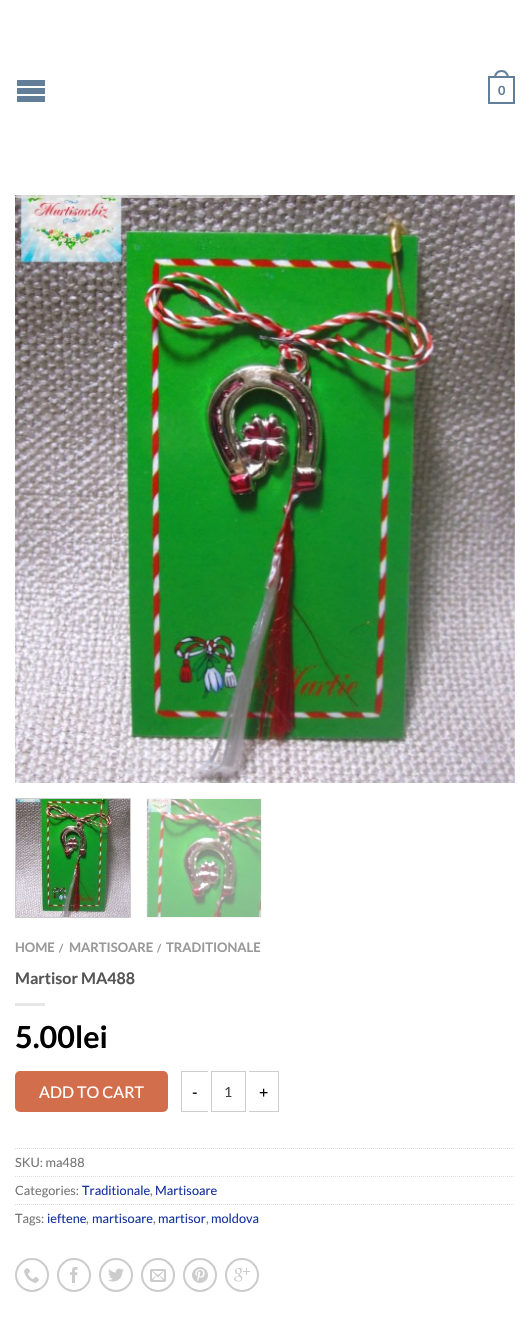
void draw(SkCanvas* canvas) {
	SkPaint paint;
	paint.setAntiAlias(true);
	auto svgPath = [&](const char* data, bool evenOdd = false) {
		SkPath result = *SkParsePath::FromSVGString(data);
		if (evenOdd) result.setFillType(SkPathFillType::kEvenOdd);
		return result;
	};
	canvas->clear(0xffffffff);
	canvas->drawImageRect(SkImages::DeferredFromEncodedData(SkData::MakeFromFileName("img1.png")), SkRect::MakeXYWH(17, 80, 28, 22), SkSamplingOptions());
	paint.setColor(0xff627f9a);
	canvas->drawPath(svgPath("M501.5 70C506 70 509 73.5 509 78H494C494 73.5 497 70 501.5 70ZM501.5 72C505 72 507 75 507 78H496C496 75 498 72 501.5 72Z", true), paint);
	paint.setStroke(true);
	paint.setStrokeWidth(2);
	canvas->drawRect(SkRect::MakeXYWH(489, 77, 25, 26), paint);
	SkFont f1(fontMgr->matchFamilyStyle("Lato", SkFontStyle::Bold()), 12.75);
	f1.setSubpixel(true);
	paint.setStroke(false);
	canvas->drawString("0", 498, 95, f1, paint);
	canvas->drawImageRect(SkImages::DeferredFromEncodedData(SkData::MakeFromFileName("img2.png")), SkRect::MakeXYWH(15, 195, 500, 588), SkSamplingOptions());
	paint.setColor(0xbfdddddd);
	canvas->drawRoundRect(SkRect::MakeXYWH(15, 195, 250, 3), 1.5, 1.5, paint);
	paint.setStroke(true);
	paint.setStrokeWidth(1);
	paint.setColor(0xffcccccc);
	canvas->drawRect(SkRect::MakeXYWH(15.5, 798.5, 115, 119), paint);
	canvas->drawImageRect(SkImages::DeferredFromEncodedData(SkData::MakeFromFileName("img3.png")), SkRect::MakeXYWH(16, 799, 114, 118), SkSamplingOptions());
	paint.setColor(0xfff7f7f7);
	canvas->drawRect(SkRect::MakeXYWH(146.5, 798.5, 115, 119), paint);
	canvas->drawImageRect(SkImages::DeferredFromEncodedData(SkData::MakeFromFileName("img4.png")), SkRect::MakeXYWH(147, 799, 114, 118), SkSamplingOptions());
	SkFont f2(fontMgr->matchFamilyStyle("Lato", SkFontStyle::Bold()), 13);
	f2.setSubpixel(true);
	paint.setStroke(false);
	paint.setColor(0xff999999);
	canvas->drawString("HOME", 15, 952, f2, paint);
	SkFont f3(fontMgr->matchFamilyStyle("Lato", SkFontStyle::Bold()), 11);
	f3.setSubpixel(true);
	canvas->drawString("/", 59, 952, f3, paint);
	canvas->drawString("MARTISOARE", 69, 952, f2, paint);
	canvas->drawString("/", 157, 952, f3, paint);
	canvas->drawString("TRADITIONALE", 166, 952, f2, paint);
	SkFont f4(fontMgr->matchFamilyStyle("Lato", SkFontStyle::Bold()), 16);
	f4.setSubpixel(true);
	paint.setColor(0xff555555);
	canvas->drawString("Martisor MA488", 15, 984, f4, paint);
	paint.setColor(0xffe6e6e6);
	canvas->drawRect(SkRect::MakeXYWH(15, 1003, 30, 3), paint);
	SkFont f5(fontMgr->matchFamilyStyle("Lato", SkFontStyle::Bold()), 30.5);
	f5.setSubpixel(true);
	paint.setColor(0xff000000);
	canvas->drawString("5.00lei", 15, 1048, f5, paint);
	paint.setColor(0xffd26e4b);
	canvas->drawRoundRect(SkRect::MakeXYWH(15, 1071, 153, 41), 5, 5, paint);
	SkFont f6(fontMgr->matchFamilyStyle("Lato", SkFontStyle::Normal()), 16);
	f6.setSubpixel(true);
	paint.setColor(0xffffffff);
	canvas->drawString("ADD TO CART", 39, 1098, f6, paint);
	paint.setColor(0xffcccccc);
	canvas->drawRect(SkRect::MakeXYWH(181, 1071, 27, 1), paint);
	canvas->drawRect(SkRect::MakeXYWH(181, 1111, 27, 1), paint);
	canvas->drawRect(SkRect::MakeXYWH(181, 1071, 1, 41), paint);
	paint.setColor(0xff000000);
	canvas->drawString("-", 192, 1098, f6, paint);
	paint.setStroke(true);
	paint.setColor(0xffcccccc);
	canvas->drawRect(SkRect::MakeXYWH(211.5, 1071.5, 34, 40), paint);
	SkFont f7(fontMgr->matchFamilyStyle("Lato", SkFontStyle::Normal()), 14);
	f7.setSubpixel(true);
	paint.setStroke(false);
	paint.setColor(0xff404040);
	canvas->drawString("1", 224, 1097, f7, paint);
	paint.setColor(0xffcccccc);
	canvas->drawRect(SkRect::MakeXYWH(249, 1071, 30, 1), paint);
	canvas->drawRect(SkRect::MakeXYWH(278, 1071, 1, 41), paint);
	canvas->drawRect(SkRect::MakeXYWH(249, 1111, 30, 1), paint);
	paint.setColor(0xff000000);
	canvas->drawString("+", 259, 1098, f6, paint);
	paint.setStroke(true);
	paint.setColor(0xffdddddd);
	paint.setPathEffect(SkDashPathEffect::Make({{1, 1}}, 0));
	canvas->drawPath(svgPath("M15 1148.5H515"), paint);
	paint.setPathEffect(nullptr);
	SkFont f8(fontMgr->matchFamilyStyle("Lato", SkFontStyle::Normal()), 12.75);
	f8.setSubpixel(true);
	paint.setStroke(false);
	paint.setColor(0xff777777);
	canvas->drawString("SKU: ma488", 15, 1167, f8, paint);
	paint.setStroke(true);
	paint.setColor(0xffdddddd);
	paint.setPathEffect(SkDashPathEffect::Make({{1, 1}}, 0));
	canvas->drawPath(svgPath("M15 1176.5H515"), paint);
	paint.setPathEffect(nullptr);
	paint.setStroke(false);
	paint.setColor(0xff777777);
	canvas->drawString("Categories:", 15, 1195, f8, paint);
	paint.setColor(0xff1835a0);
	canvas->drawString("Traditionale", 82, 1195, f8, paint);
	paint.setColor(0xff777777);
	canvas->drawString(",", 150, 1195, f8, paint);
	paint.setColor(0xff1835a0);
	canvas->drawString("Martisoare", 155, 1195, f8, paint);
	paint.setStroke(true);
	paint.setColor(0xffdddddd);
	paint.setPathEffect(SkDashPathEffect::Make({{1, 1}}, 0));
	canvas->drawPath(svgPath("M15 1204.5H515"), paint);
	paint.setPathEffect(nullptr);
	paint.setStroke(false);
	paint.setColor(0xff777777);
	canvas->drawString("Tags:", 15, 1223, f8, paint);
	paint.setColor(0xff1835a0);
	canvas->drawString("ieftene", 47, 1223, f8, paint);
	paint.setColor(0xff777777);
	canvas->drawString(",", 86, 1223, f8, paint);
	paint.setColor(0xff1835a0);
	canvas->drawString("martisoare", 92, 1223, f8, paint);
	paint.setColor(0xff777777);
	canvas->drawString(",", 153, 1223, f8, paint);
	paint.setColor(0xff1835a0);
	canvas->drawString("martisor", 158, 1223, f8, paint);
	paint.setColor(0xff777777);
	canvas->drawString(",", 206, 1223, f8, paint);
	paint.setColor(0xff1835a0);
	canvas->drawString("moldova", 211, 1223, f8, paint);
	paint.setStroke(true);
	paint.setStrokeWidth(2);
	paint.setColor(0xffcccccc);
	canvas->drawCircle(32, 1275, 16, paint);
	canvas->drawImageRect(SkImages::DeferredFromEncodedData(SkData::MakeFromFileName("img5.png")), SkRect::MakeXYWH(24, 1268, 15, 15), SkSamplingOptions());
	canvas->drawCircle(74, 1275, 16, paint);
	canvas->drawImageRect(SkImages::DeferredFromEncodedData(SkData::MakeFromFileName("img6.png")), SkRect::MakeXYWH(70, 1267, 8, 16), SkSamplingOptions());
	canvas->drawCircle(116, 1275, 16, paint);
	canvas->drawImageRect(SkImages::DeferredFromEncodedData(SkData::MakeFromFileName("img7.png")), SkRect::MakeXYWH(108, 1268, 16, 14), SkSamplingOptions());
	canvas->drawCircle(158, 1275, 16, paint);
	canvas->drawImageRect(SkImages::DeferredFromEncodedData(SkData::MakeFromFileName("img8.png")), SkRect::MakeXYWH(150, 1269, 16, 13), SkSamplingOptions());
	canvas->drawCircle(200, 1275, 16, paint);
	canvas->drawImageRect(SkImages::DeferredFromEncodedData(SkData::MakeFromFileName("img9.png")), SkRect::MakeXYWH(192, 1267, 16, 16), SkSamplingOptions());
	canvas->drawCircle(242, 1275, 16, paint);
	canvas->drawImageRect(SkImages::DeferredFromEncodedData(SkData::MakeFromFileName("img10.png")), SkRect::MakeXYWH(234, 1268, 16, 14), SkSamplingOptions());
}
